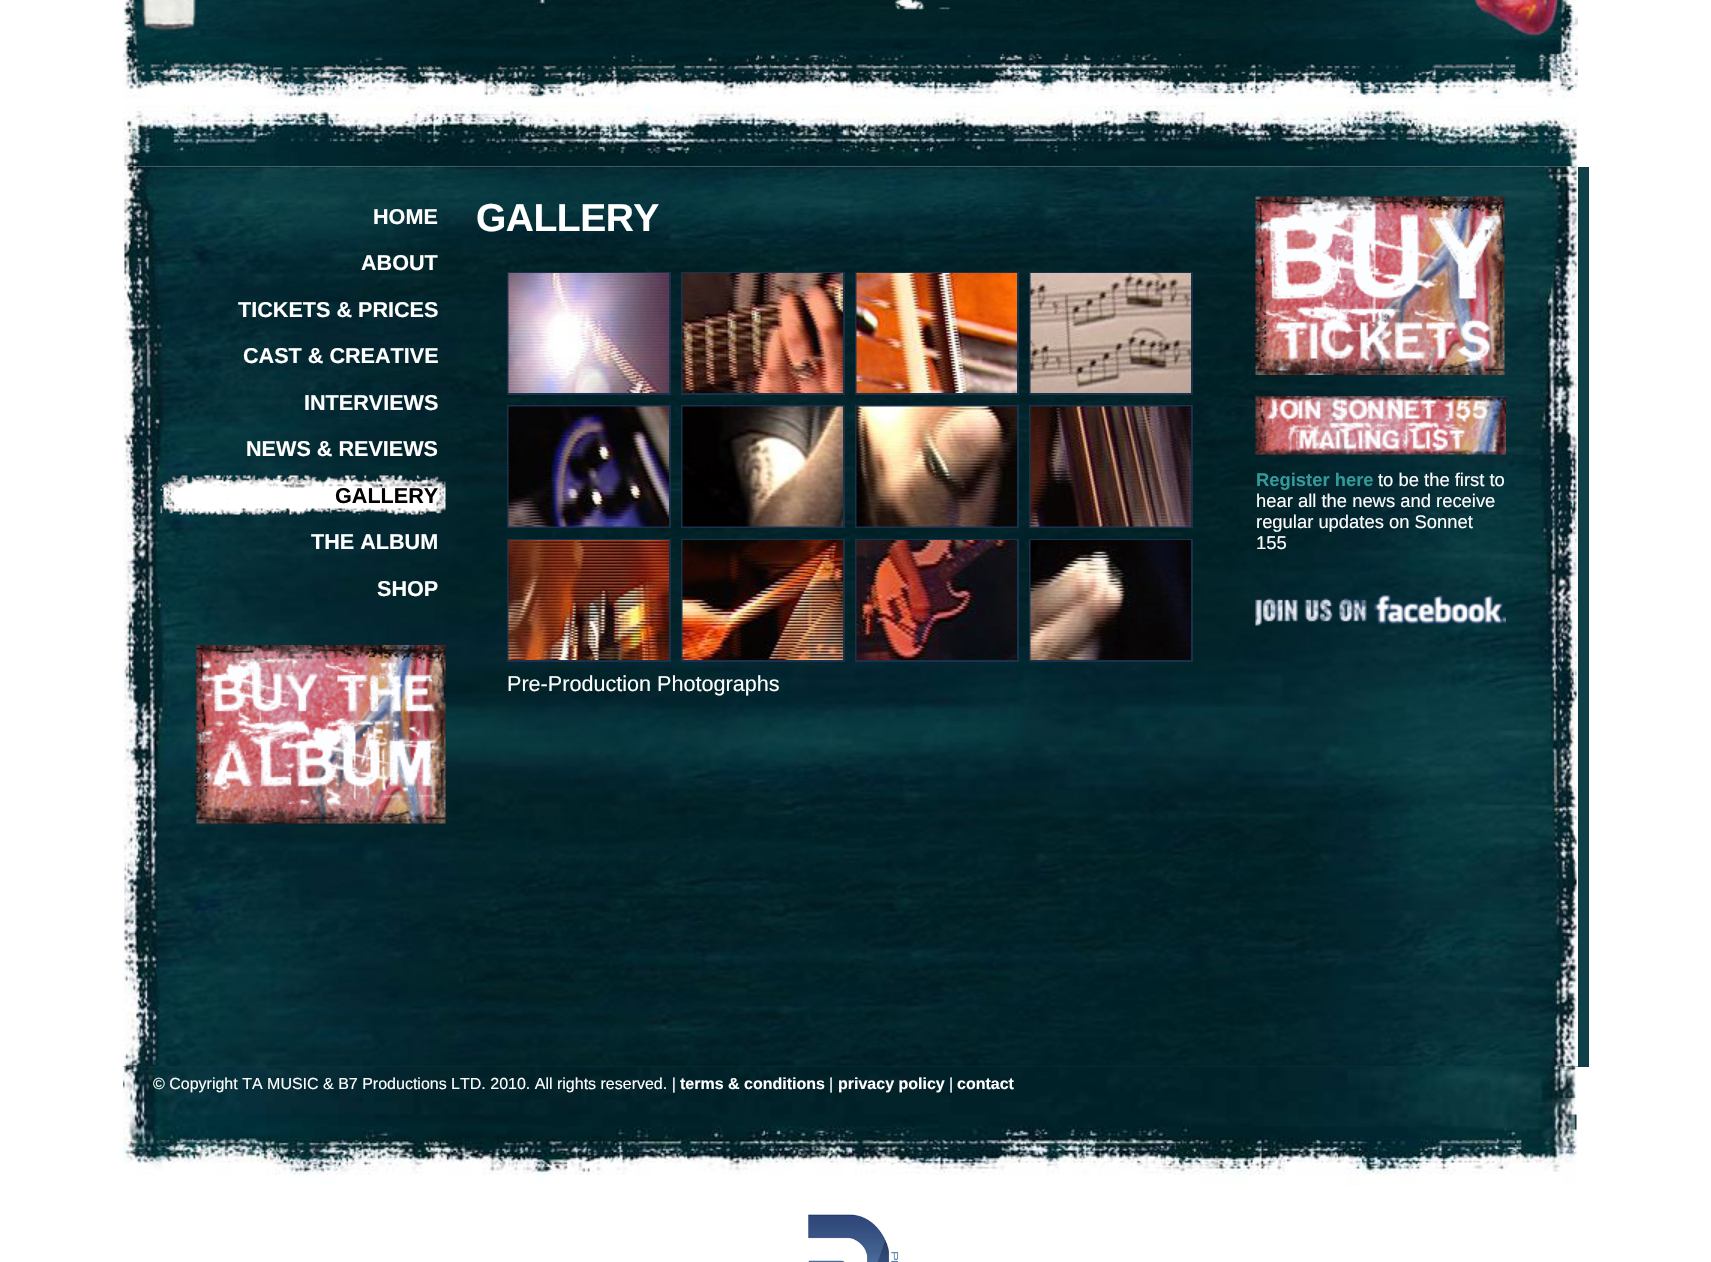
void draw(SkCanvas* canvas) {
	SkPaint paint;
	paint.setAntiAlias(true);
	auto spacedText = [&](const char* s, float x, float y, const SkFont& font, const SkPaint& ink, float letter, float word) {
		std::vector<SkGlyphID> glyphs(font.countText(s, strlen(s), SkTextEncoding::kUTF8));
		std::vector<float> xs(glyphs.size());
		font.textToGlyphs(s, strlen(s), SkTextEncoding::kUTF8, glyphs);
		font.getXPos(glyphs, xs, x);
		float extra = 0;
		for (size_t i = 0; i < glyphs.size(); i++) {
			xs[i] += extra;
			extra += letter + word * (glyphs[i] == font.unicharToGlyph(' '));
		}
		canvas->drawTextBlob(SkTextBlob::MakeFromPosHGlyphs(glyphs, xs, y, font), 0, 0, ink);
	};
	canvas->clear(0xffffffff);
	canvas->drawImageRect(SkImages::DeferredFromEncodedData(SkData::MakeFromFileName("img1.png")), SkRect::MakeXYWH(123, 0, 1455, 99), SkSamplingOptions());
	canvas->drawImageRect(SkImages::DeferredFromEncodedData(SkData::MakeFromFileName("img2.png")), SkRect::MakeXYWH(123, 105, 1455, 62), SkSamplingOptions());
	paint.setColor(0xff0f4047);
	canvas->drawRect(SkRect::MakeXYWH(123, 167, 1466, 900), paint);
	canvas->drawImageRect(SkImages::DeferredFromEncodedData(SkData::MakeFromFileName("img3.png")), SkRect::MakeXYWH(123, 166, 1455, 901), SkSamplingOptions());
	SkFont f1(fontMgr->matchFamilyStyle("Liberation Sans", SkFontStyle::Bold()), 21.6);
	f1.setSubpixel(true);
	paint.setColor(0xffffffff);
	canvas->drawString("HOME", 373, 224, f1, paint);
	canvas->drawString("ABOUT", 361, 270, f1, paint);
	canvas->drawString("TICKETS & PRICES", 238, 317, f1, paint);
	canvas->drawString("CAST & CREATIVE", 243, 363, f1, paint);
	canvas->drawString("INTERVIEWS", 304, 410, f1, paint);
	canvas->drawString("NEWS & REVIEWS", 246, 456, f1, paint);
	canvas->drawImageRect(SkImages::DeferredFromEncodedData(SkData::MakeFromFileName("img4.png")), SkRect::MakeXYWH(160, 475, 286, 40), SkSamplingOptions());
	paint.setColor(0xff000000);
	canvas->drawString("GALLERY", 335, 503, f1, paint);
	paint.setColor(0xffffffff);
	canvas->drawString("THE ALBUM", 311, 549, f1, paint);
	canvas->drawString("SHOP", 377, 596, f1, paint);
	canvas->drawImageRect(SkImages::DeferredFromEncodedData(SkData::MakeFromFileName("img5.png")), SkRect::MakeXYWH(196, 645, 250, 179), SkSamplingOptions());
	SkFont f2(fontMgr->matchFamilyStyle("Liberation Sans", SkFontStyle::Bold()), 39);
	f2.setSubpixel(true);
	spacedText("GALLERY", 476, 231, f2, paint, -0.5, 0);
	paint.setStroke(true);
	paint.setStrokeWidth(2);
	paint.setColor(0xff19314d);
	canvas->drawRect(SkRect::MakeXYWH(508, 273, 162, 121), paint);
	canvas->drawImageRect(SkImages::DeferredFromEncodedData(SkData::MakeFromFileName("img6.png")), SkRect::MakeXYWH(508, 273, 161, 120), SkSamplingOptions());
	canvas->drawRect(SkRect::MakeXYWH(682, 273, 162, 121), paint);
	canvas->drawImageRect(SkImages::DeferredFromEncodedData(SkData::MakeFromFileName("img7.png")), SkRect::MakeXYWH(682, 273, 161, 120), SkSamplingOptions());
	canvas->drawRect(SkRect::MakeXYWH(856, 273, 162, 121), paint);
	canvas->drawImageRect(SkImages::DeferredFromEncodedData(SkData::MakeFromFileName("img8.png")), SkRect::MakeXYWH(856, 273, 161, 120), SkSamplingOptions());
	canvas->drawRect(SkRect::MakeXYWH(1030, 273, 162, 121), paint);
	canvas->drawImageRect(SkImages::DeferredFromEncodedData(SkData::MakeFromFileName("img9.png")), SkRect::MakeXYWH(1030, 273, 161, 120), SkSamplingOptions());
	canvas->drawRect(SkRect::MakeXYWH(508, 406, 162, 121), paint);
	canvas->drawImageRect(SkImages::DeferredFromEncodedData(SkData::MakeFromFileName("img10.png")), SkRect::MakeXYWH(508, 406, 161, 121), SkSamplingOptions());
	canvas->drawRect(SkRect::MakeXYWH(682, 406, 162, 121), paint);
	canvas->drawImageRect(SkImages::DeferredFromEncodedData(SkData::MakeFromFileName("img11.png")), SkRect::MakeXYWH(682, 406, 161, 121), SkSamplingOptions());
	canvas->drawRect(SkRect::MakeXYWH(856, 406, 162, 121), paint);
	canvas->drawImageRect(SkImages::DeferredFromEncodedData(SkData::MakeFromFileName("img12.png")), SkRect::MakeXYWH(856, 406, 161, 121), SkSamplingOptions());
	canvas->drawRect(SkRect::MakeXYWH(1030, 406, 162, 121), paint);
	canvas->drawImageRect(SkImages::DeferredFromEncodedData(SkData::MakeFromFileName("img13.png")), SkRect::MakeXYWH(1030, 406, 161, 121), SkSamplingOptions());
	canvas->drawRect(SkRect::MakeXYWH(508, 540, 162, 121), paint);
	canvas->drawImageRect(SkImages::DeferredFromEncodedData(SkData::MakeFromFileName("img14.png")), SkRect::MakeXYWH(508, 540, 161, 120), SkSamplingOptions());
	canvas->drawRect(SkRect::MakeXYWH(682, 540, 162, 121), paint);
	canvas->drawImageRect(SkImages::DeferredFromEncodedData(SkData::MakeFromFileName("img15.png")), SkRect::MakeXYWH(682, 540, 161, 120), SkSamplingOptions());
	canvas->drawRect(SkRect::MakeXYWH(856, 540, 162, 121), paint);
	canvas->drawImageRect(SkImages::DeferredFromEncodedData(SkData::MakeFromFileName("img16.png")), SkRect::MakeXYWH(856, 540, 161, 120), SkSamplingOptions());
	canvas->drawRect(SkRect::MakeXYWH(1030, 540, 162, 121), paint);
	canvas->drawImageRect(SkImages::DeferredFromEncodedData(SkData::MakeFromFileName("img17.png")), SkRect::MakeXYWH(1030, 540, 161, 120), SkSamplingOptions());
	SkFont f3(fontMgr->matchFamilyStyle("Liberation Sans", SkFontStyle::Normal()), 21.6);
	f3.setSubpixel(true);
	paint.setStroke(false);
	paint.setColor(0xffffffff);
	canvas->drawString("Pre-Production Photographs", 507, 691, f3, paint);
	canvas->drawImageRect(SkImages::DeferredFromEncodedData(SkData::MakeFromFileName("img18.png")), SkRect::MakeXYWH(1255, 196, 250, 179), SkSamplingOptions());
	canvas->drawImageRect(SkImages::DeferredFromEncodedData(SkData::MakeFromFileName("img19.png")), SkRect::MakeXYWH(1255, 396, 251, 59), SkSamplingOptions());
	SkFont f4(fontMgr->matchFamilyStyle("Liberation Sans", SkFontStyle::Bold()), 18.4);
	f4.setSubpixel(true);
	paint.setColor(0xff339999);
	canvas->drawString("Register here", 1256, 486, f4, paint);
	SkFont f5(fontMgr->matchFamilyStyle("Liberation Sans", SkFontStyle::Normal()), 18.4);
	f5.setSubpixel(true);
	paint.setColor(0xffffffff);
	canvas->drawString("to be the first to", 1378, 486, f5, paint);
	canvas->drawString("hear all the news and receive", 1256, 507, f5, paint);
	canvas->drawString("regular updates on Sonnet", 1256, 528, f5, paint);
	canvas->drawString("155", 1256, 549, f5, paint);
	canvas->drawImageRect(SkImages::DeferredFromEncodedData(SkData::MakeFromFileName("img20.png")), SkRect::MakeXYWH(1255, 595, 251, 31), SkSamplingOptions());
	canvas->drawImageRect(SkImages::DeferredFromEncodedData(SkData::MakeFromFileName("img21.png")), SkRect::MakeXYWH(123, 1066, 1454, 120), SkSamplingOptions());
	SkFont f6(fontMgr->matchFamilyStyle("Liberation Sans", SkFontStyle::Normal()), 16);
	f6.setSubpixel(true);
	canvas->drawString("© Copyright TA MUSIC & B7 Productions LTD. 2010. All rights reserved. |", 153, 1089, f6, paint);
	SkFont f7(fontMgr->matchFamilyStyle("Liberation Sans", SkFontStyle::Bold()), 16);
	f7.setSubpixel(true);
	canvas->drawString("terms & conditions", 680, 1089, f7, paint);
	canvas->drawString("|", 829, 1089, f6, paint);
	canvas->drawString("privacy policy", 838, 1089, f7, paint);
	canvas->drawString("|", 949, 1089, f6, paint);
	canvas->drawString("contact", 957, 1089, f7, paint);
	canvas->drawImageRect(SkImages::DeferredFromEncodedData(SkData::MakeFromFileName("img22.png")), SkRect::MakeXYWH(808, 1214, 91, 48), SkSamplingOptions());
}
